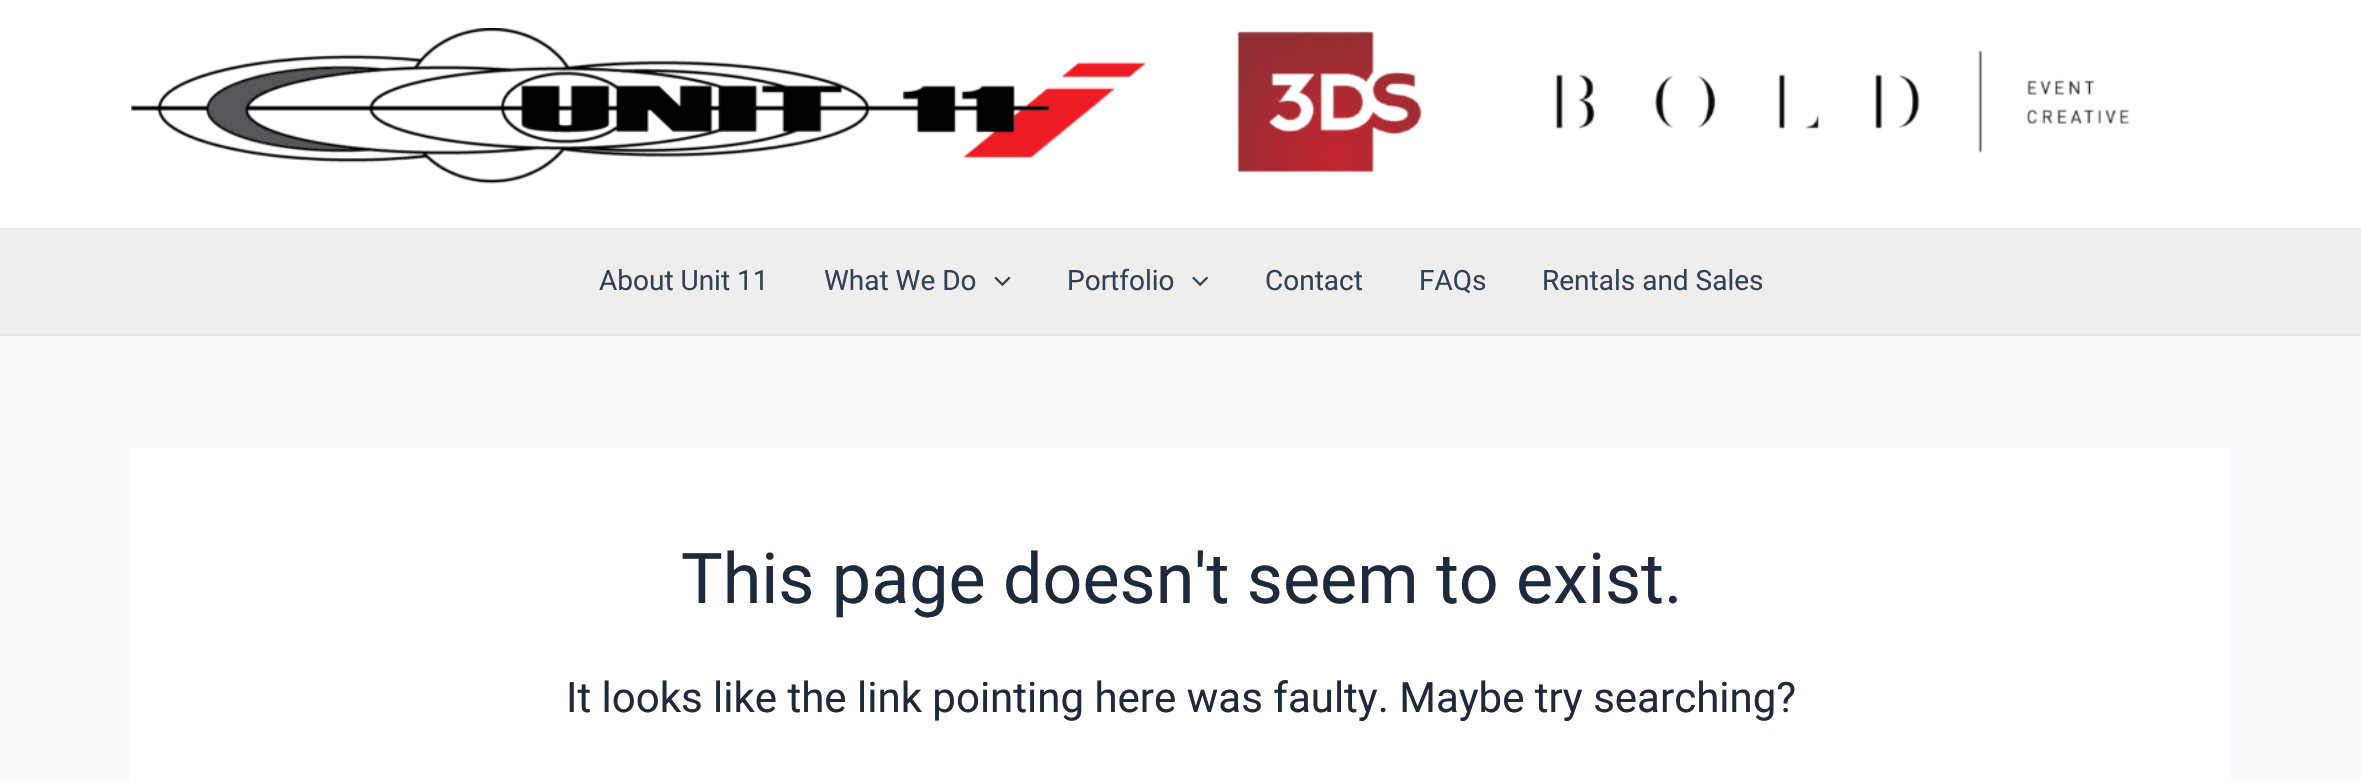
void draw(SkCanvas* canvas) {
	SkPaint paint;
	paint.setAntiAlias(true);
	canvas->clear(0xfff9fafb);
	paint.setColor(0xffffffff);
	canvas->drawRect(SkRect::MakeXYWH(0, 0, 2361, 228), paint);
	paint.setColor(0xffe2e8f0);
	canvas->drawRect(SkRect::MakeXYWH(0, 228, 2361, 2), paint);
	canvas->drawImageRect(SkImages::DeferredFromEncodedData(SkData::MakeFromFileName("img1.png")), SkRect::MakeXYWH(131, 28, 1999, 156), SkSamplingOptions());
	paint.setColor(0xffeeeeee);
	canvas->drawRect(SkRect::MakeXYWH(0, 230, 2361, 104), paint);
	paint.setColor(0xffe2e8f0);
	canvas->drawRect(SkRect::MakeXYWH(0, 334, 2361, 2), paint);
	SkFont f1(fontMgr->matchFamilyStyle("Roboto", SkFontStyle::Normal()), 28);
	f1.setSubpixel(true);
	paint.setColor(0xff334155);
	canvas->drawString("About Unit 11", 599, 290, f1, paint);
	canvas->drawString("What We Do", 824, 290, f1, paint);
	canvas->drawImageRect(SkImages::DeferredFromEncodedData(SkData::MakeFromFileName("img2.png")), SkRect::MakeXYWH(994, 276, 17, 11), SkSamplingOptions());
	canvas->drawString("Portfolio", 1067, 290, f1, paint);
	canvas->drawImageRect(SkImages::DeferredFromEncodedData(SkData::MakeFromFileName("img3.png")), SkRect::MakeXYWH(1192, 276, 17, 11), SkSamplingOptions());
	canvas->drawString("Contact", 1265, 290, f1, paint);
	canvas->drawString("FAQs", 1419, 290, f1, paint);
	canvas->drawString("Rentals and Sales", 1542, 290, f1, paint);
	paint.setColor(0xffffffff);
	canvas->drawRect(SkRect::MakeXYWH(131, 448, 2100, 333), paint);
	SkFont f2(fontMgr->matchFamilyStyle("Roboto", SkFontStyle::Normal()), 70);
	f2.setSubpixel(true);
	paint.setColor(0xff1e293b);
	canvas->drawString("This page doesn't seem to exist.", 681, 603, f2, paint);
	SkFont f3(fontMgr->matchFamilyStyle("Roboto", SkFontStyle::Normal()), 42);
	f3.setSubpixel(true);
	canvas->drawString("It looks like the link pointing here was faulty. Maybe try searching?", 566, 712, f3, paint);
}
